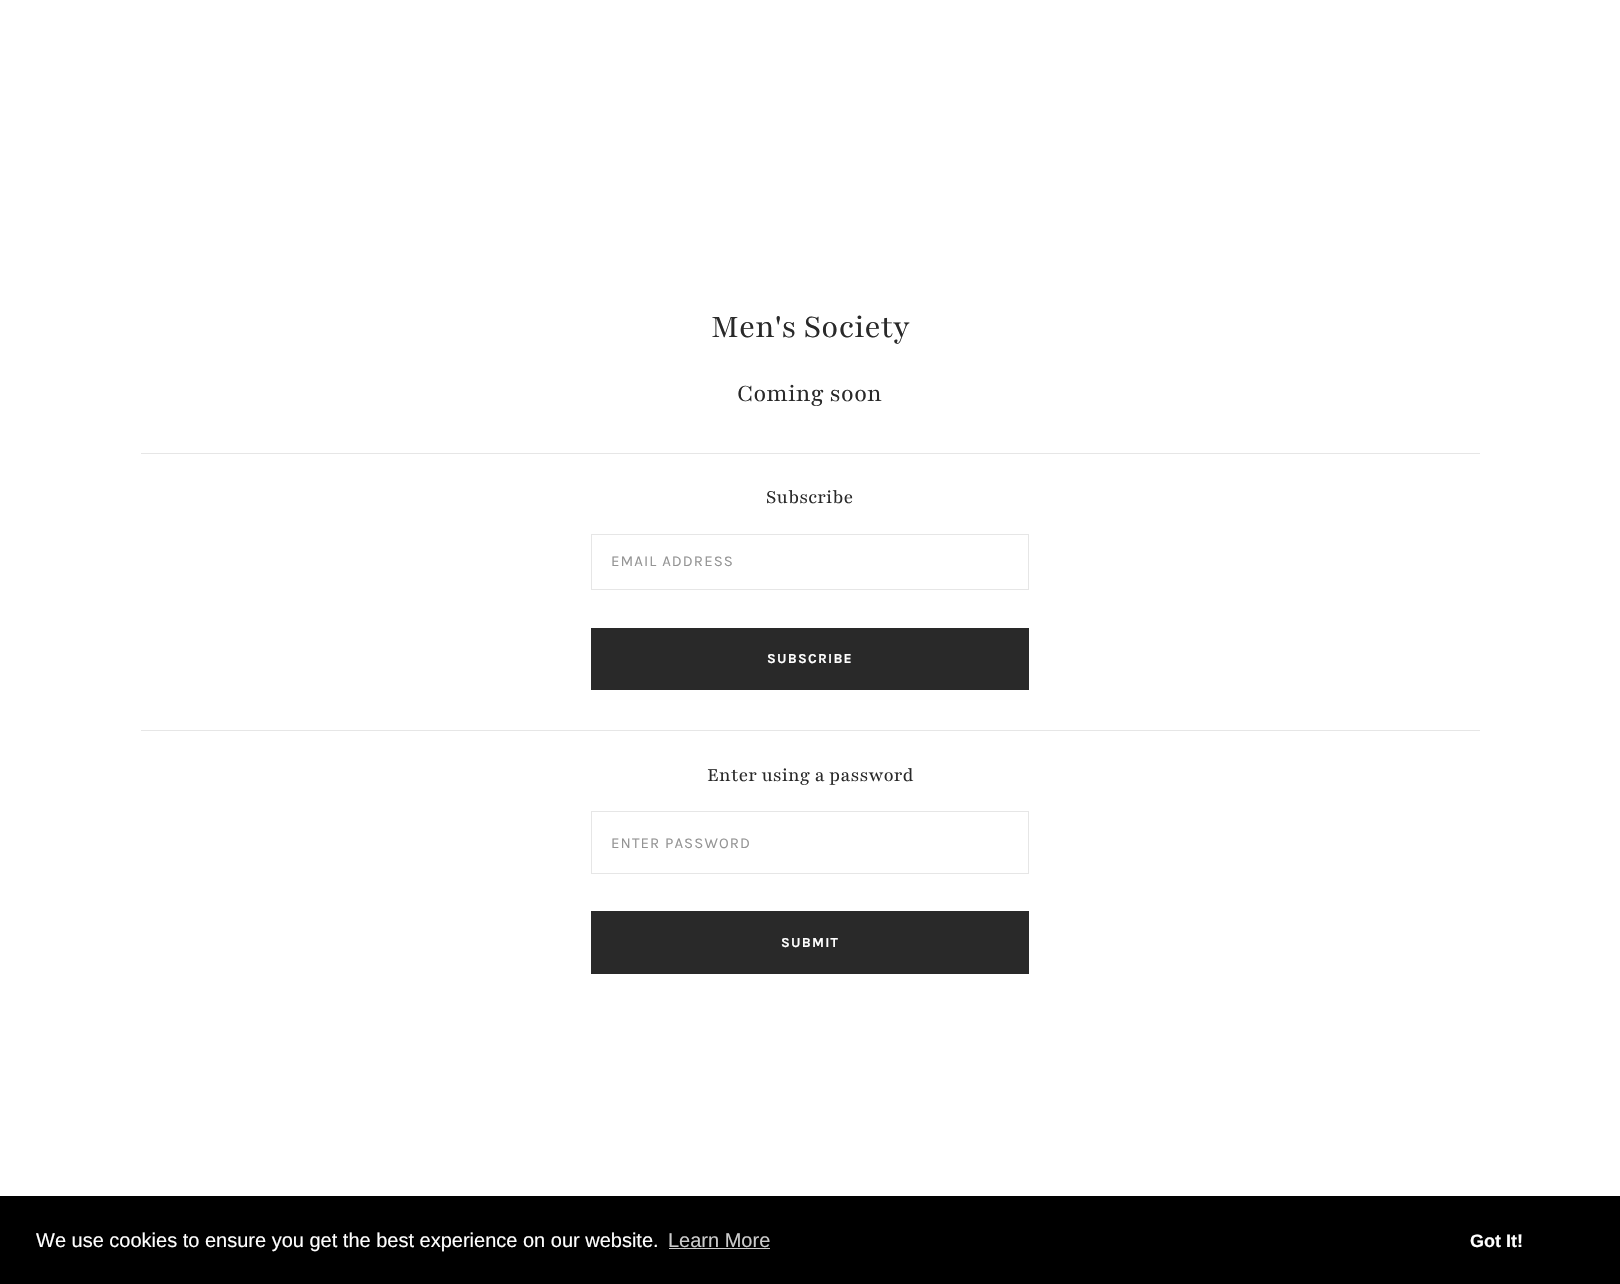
void draw(SkCanvas* canvas) {
	SkPaint paint;
	paint.setAntiAlias(true);
	auto spacedText = [&](const char* s, float x, float y, const SkFont& font, const SkPaint& ink, float letter, float word) {
		std::vector<SkGlyphID> glyphs(font.countText(s, strlen(s), SkTextEncoding::kUTF8));
		std::vector<float> xs(glyphs.size());
		font.textToGlyphs(s, strlen(s), SkTextEncoding::kUTF8, glyphs);
		font.getXPos(glyphs, xs, x);
		float extra = 0;
		for (size_t i = 0; i < glyphs.size(); i++) {
			xs[i] += extra;
			extra += letter + word * (glyphs[i] == font.unicharToGlyph(' '));
		}
		canvas->drawTextBlob(SkTextBlob::MakeFromPosHGlyphs(glyphs, xs, y, font), 0, 0, ink);
	};
	canvas->clear(0xffffffff);
	SkFont f1(fontMgr->matchFamilyStyle("Playfair", SkFontStyle::Normal()), 35);
	f1.setSubpixel(true);
	paint.setColor(0xff292929);
	canvas->drawString("Men's Society", 711, 337, f1, paint);
	SkFont f2(fontMgr->matchFamilyStyle("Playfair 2", SkFontStyle::Normal()), 26.25);
	f2.setSubpixel(true);
	canvas->drawString("Coming soon", 737, 401, f2, paint);
	paint.setColor(0xffe6e6e6);
	canvas->drawRect(SkRect::MakeXYWH(141, 453, 1339, 1), paint);
	SkFont f3(fontMgr->matchFamilyStyle("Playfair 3", SkFontStyle::Normal()), 20.5);
	f3.setSubpixel(true);
	paint.setColor(0xff292929);
	canvas->drawString("Subscribe", 766, 503, f3, paint);
	paint.setStroke(true);
	paint.setStrokeWidth(1);
	paint.setColor(0xffe6e6e6);
	canvas->drawRect(SkRect::MakeXYWH(591.5, 534.5, 437, 55), paint);
	SkFont f4(fontMgr->matchFamilyStyle("Karla", SkFontStyle::Normal()), 15);
	f4.setSubpixel(true);
	paint.setStroke(false);
	paint.setColor(0xff949494);
	spacedText("EMAIL ADDRESS", 611, 566, f4, paint, 1.1, 0);
	paint.setColor(0xff292929);
	canvas->drawRect(SkRect::MakeXYWH(591, 628, 438, 62), paint);
	SkFont f5(fontMgr->matchFamilyStyle("Karla", SkFontStyle::Bold()), 13.75);
	f5.setSubpixel(true);
	paint.setColor(0xffffffff);
	spacedText("SUBSCRIBE", 767, 663, f5, paint, 1.25, 0);
	paint.setColor(0xffe6e6e6);
	canvas->drawRect(SkRect::MakeXYWH(141, 730, 1339, 1), paint);
	paint.setColor(0xff292929);
	canvas->drawString("Enter using a password", 707, 781, f3, paint);
	paint.setStroke(true);
	paint.setColor(0xffe6e6e6);
	canvas->drawRect(SkRect::MakeXYWH(591.5, 811.5, 437, 62), paint);
	paint.setStroke(false);
	paint.setColor(0xff949494);
	spacedText("ENTER PASSWORD", 611, 848, f4, paint, 1.1, 0);
	paint.setColor(0xff292929);
	canvas->drawRect(SkRect::MakeXYWH(591, 911, 438, 63), paint);
	paint.setColor(0xffffffff);
	spacedText("SUBMIT", 781, 947, f5, paint, 1.25, 0);
	paint.setColor(0xff000000);
	canvas->drawRect(SkRect::MakeXYWH(0, 1196, 1620, 88), paint);
	SkFont f6(fontMgr->matchFamilyStyle("Liberation Sans", SkFontStyle::Normal()), 20);
	f6.setSubpixel(true);
	paint.setColor(0xffffffff);
	canvas->drawString("We use cookies to ensure you get the best experience on our website.", 36, 1247, f6, paint);
	paint.setColor(0xffcccccc);
	canvas->drawString("Learn More", 668, 1247, f6, paint);
	canvas->drawRect(SkRect::MakeXYWH(669, 1248, 101, 1), paint);
	SkFont f7(fontMgr->matchFamilyStyle("Liberation Sans", SkFontStyle::Bold()), 18);
	f7.setSubpixel(true);
	paint.setColor(0xffffffff);
	canvas->drawString("Got It!", 1470, 1247, f7, paint);
}
